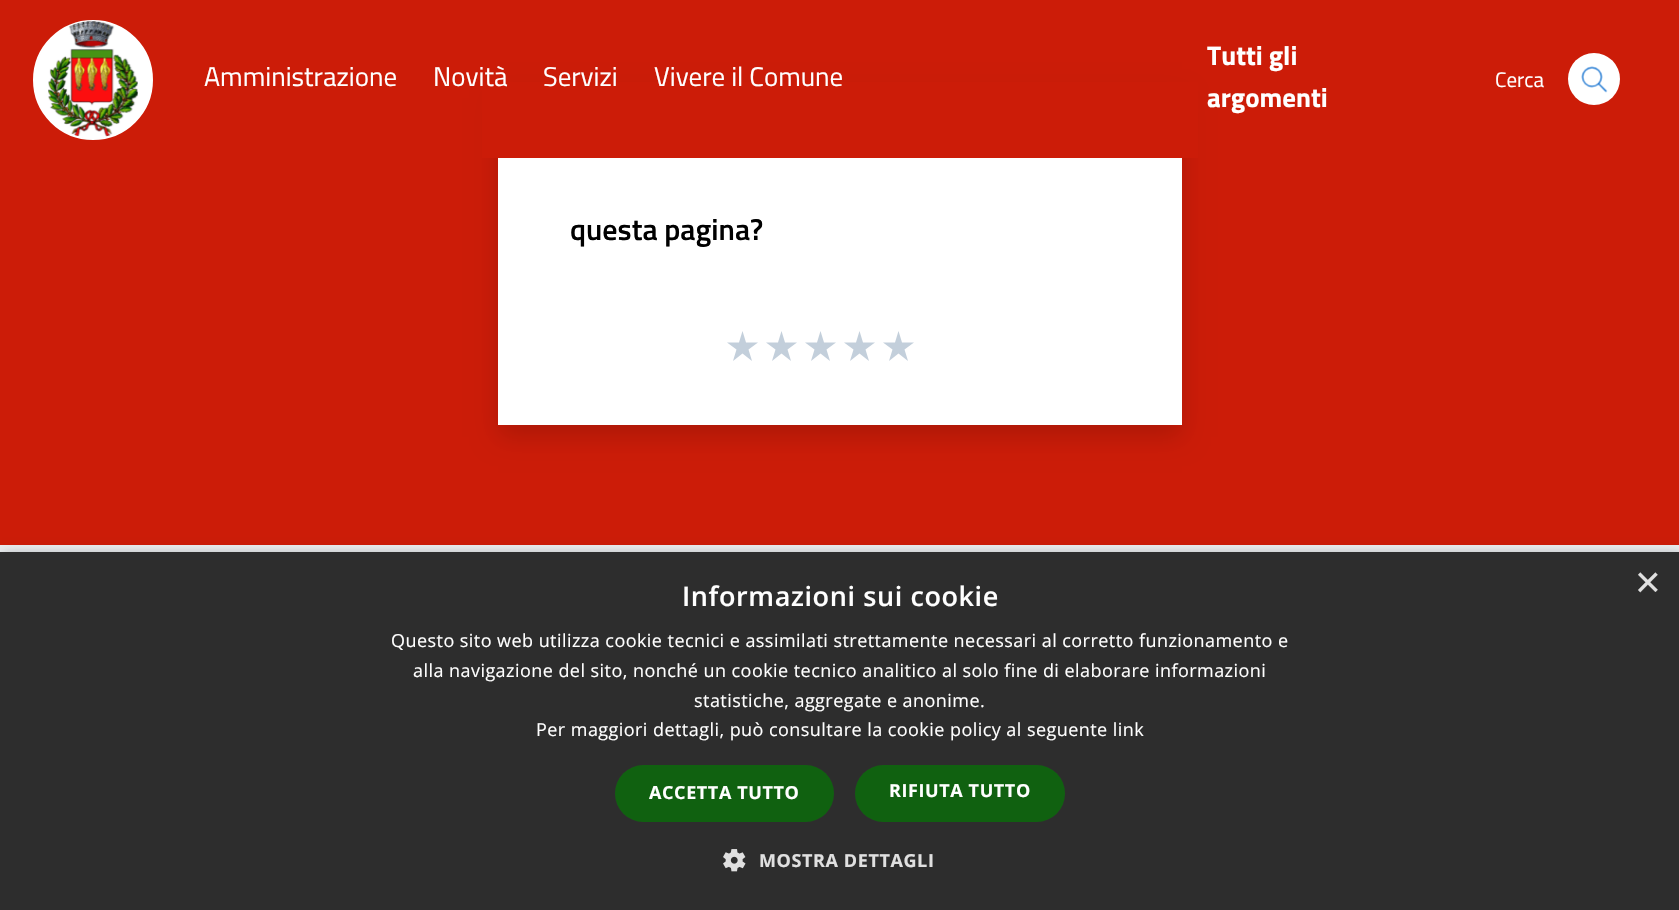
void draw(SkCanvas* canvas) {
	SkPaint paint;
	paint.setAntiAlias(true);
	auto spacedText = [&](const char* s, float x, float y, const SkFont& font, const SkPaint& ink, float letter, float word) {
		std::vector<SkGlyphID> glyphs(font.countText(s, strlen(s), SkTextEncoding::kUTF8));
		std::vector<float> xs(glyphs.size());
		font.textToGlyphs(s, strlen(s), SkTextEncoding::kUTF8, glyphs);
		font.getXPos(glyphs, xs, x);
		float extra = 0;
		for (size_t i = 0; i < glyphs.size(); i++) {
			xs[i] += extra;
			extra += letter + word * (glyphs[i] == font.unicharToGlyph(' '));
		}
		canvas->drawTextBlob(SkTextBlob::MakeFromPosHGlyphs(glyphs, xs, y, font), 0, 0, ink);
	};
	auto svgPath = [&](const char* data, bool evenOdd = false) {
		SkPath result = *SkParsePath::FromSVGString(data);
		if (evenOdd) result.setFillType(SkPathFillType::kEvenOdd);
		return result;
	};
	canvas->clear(0xffcc1c08);
	paint.setColor(0x26000000);
	paint.setMaskFilter(SkMaskFilter::MakeBlur(kNormal_SkBlurStyle, 12));
	canvas->drawRect(SkRect::MakeXYWH(498, 98, 684, 339), paint);
	paint.setMaskFilter(nullptr);
	paint.setColor(0xffcc1c08);
	canvas->drawRect(SkRect::MakeXYWH(482, 82, 716, 76), paint);
	paint.setColor(0xffffffff);
	canvas->drawCircle(93, 80, 59, paint);
	paint.setStroke(true);
	paint.setStrokeWidth(2);
	canvas->drawCircle(93, 80, 59, paint);
	canvas->drawImageRect(SkImages::DeferredFromEncodedData(SkData::MakeFromFileName("img1.png")), SkRect::MakeXYWH(48, 21, 90, 116), SkSamplingOptions());
	SkFont f1(fontMgr->matchFamilyStyle("Titillium Web", SkFontStyle::Normal()), 27);
	f1.setSubpixel(true);
	paint.setStroke(false);
	canvas->drawString("Amministrazione", 204, 86, f1, paint);
	canvas->drawString("Novità", 433, 86, f1, paint);
	canvas->drawString("Servizi", 543, 86, f1, paint);
	canvas->drawString("Vivere il Comune", 654, 86, f1, paint);
	SkFont f2(fontMgr->matchFamilyStyle("Titillium Web", SkFontStyle::Bold()), 27);
	f2.setSubpixel(true);
	canvas->drawString("Tutti gli", 1207, 65, f2, paint);
	canvas->drawString("argomenti", 1207, 107, f2, paint);
	SkFont f3(fontMgr->matchFamilyStyle("Titillium Web", SkFontStyle::Normal()), 21);
	f3.setSubpixel(true);
	canvas->drawString("Cerca", 1495, 87, f3, paint);
	canvas->drawCircle(1594, 79, 26, paint);
	canvas->drawImageRect(SkImages::DeferredFromEncodedData(SkData::MakeFromFileName("img2.png")), SkRect::MakeXYWH(1581, 66, 27, 27), SkSamplingOptions());
	canvas->drawRect(SkRect::MakeXYWH(498, 158, 684, 267), paint);
	SkFont f4(fontMgr->matchFamilyStyle("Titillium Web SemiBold", SkFontStyle(600, SkFontStyle::kNormal_Width, SkFontStyle::kUpright_Slant)), 30);
	f4.setSubpixel(true);
	paint.setColor(0xff000000);
	canvas->drawString("questa pagina?", 570, 240, f4, paint);
	paint.setColor(0xffc3cfdb);
	canvas->drawPath(svgPath("M742.5 331L739 342.5H727L736.5 349.5L733 361L742.5 353.5L752 361L748.5 349.5L758 342.5H746Z"), paint);
	canvas->drawPath(svgPath("M781.5 331L778 342.5H766L775.5 349.5L772 361L781.5 353.5L791 361L787.5 349.5L797 342.5H785Z"), paint);
	canvas->drawPath(svgPath("M820.5 331L817 342.5H805L814.5 349.5L811 361L820.5 353.5L830 361L826.5 349.5L836 342.5H824Z"), paint);
	canvas->drawPath(svgPath("M859.5 331L856 342.5H844L853.5 349.5L850 361L859.5 353.5L869 361L865.5 349.5L875 342.5H863Z"), paint);
	canvas->drawPath(svgPath("M898.5 331L895 342.5H883L892.5 349.5L889 361L898.5 353.5L908 361L904.5 349.5L914 342.5H902Z"), paint);
	paint.setColor(0xffebeef0);
	canvas->drawRect(SkRect::MakeXYWH(0, 545, 1679, 7), paint);
	paint.setColor(0x59000000);
	paint.setMaskFilter(SkMaskFilter::MakeBlur(kNormal_SkBlurStyle, 6));
	canvas->drawRect(SkRect::MakeXYWH(2, 555, 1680, 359), paint);
	paint.setMaskFilter(nullptr);
	paint.setColor(0xff2d2d2d);
	canvas->drawRect(SkRect::MakeXYWH(0, 552, 1679, 358), paint);
	SkFont f5(fontMgr->matchFamilyStyle("Liberation Sans", SkFontStyle::Normal()), 44);
	f5.setSubpixel(true);
	paint.setColor(0xffe0e0e0);
	canvas->drawString("×", 1635, 597, f5, paint);
	SkFont f6(fontMgr->matchFamilyStyle("Open Sans", SkFontStyle(600, SkFontStyle::kNormal_Width, SkFontStyle::kUpright_Slant)), 27);
	f6.setSubpixel(true);
	paint.setColor(0xffffffff);
	spacedText("Informazioni sui cookie", 682, 606, f6, paint, 0.6, 0);
	SkFont f7(fontMgr->matchFamilyStyle("Open Sans", SkFontStyle::Normal()), 18);
	f7.setSubpixel(true);
	spacedText("Questo sito web utilizza cookie tecnici e assimilati strettamente necessari al corretto funzionamento e", 391, 647, f7, paint, 0.45, 0);
	spacedText("alla navigazione del sito, nonché un cookie tecnico analitico al solo fine di elaborare informazioni", 413, 677, f7, paint, 0.45, 0);
	spacedText("statistiche, aggregate e anonime.", 694, 707, f7, paint, 0.45, 0);
	spacedText("Per maggiori dettagli, può consultare la cookie policy al seguente link", 536, 736, f7, paint, 0.45, 0);
	paint.setColor(0xff106110);
	canvas->drawRoundRect(SkRect::MakeXYWH(615, 765, 219, 57), 28.5, 28.5, paint);
	SkFont f8(fontMgr->matchFamilyStyle("Open Sans", SkFontStyle::Bold()), 18);
	f8.setSubpixel(true);
	paint.setColor(0xffffffff);
	spacedText("ACCETTA TUTTO", 649, 799, f8, paint, 0.6, 0);
	paint.setColor(0xff106110);
	canvas->drawRoundRect(SkRect::MakeXYWH(855, 765, 210, 57), 28.5, 28.5, paint);
	paint.setColor(0xffffffff);
	spacedText("RIFIUTA TUTTO", 889, 797, f8, paint, 0.6, 0);
	canvas->drawImageRect(SkImages::DeferredFromEncodedData(SkData::MakeFromFileName("img3.png")), SkRect::MakeXYWH(723, 849, 23, 23), SkSamplingOptions());
	paint.setColor(0xffe0e0e0);
	spacedText("MOSTRA DETTAGLI", 759, 867, f8, paint, 0.6, 0);
}
